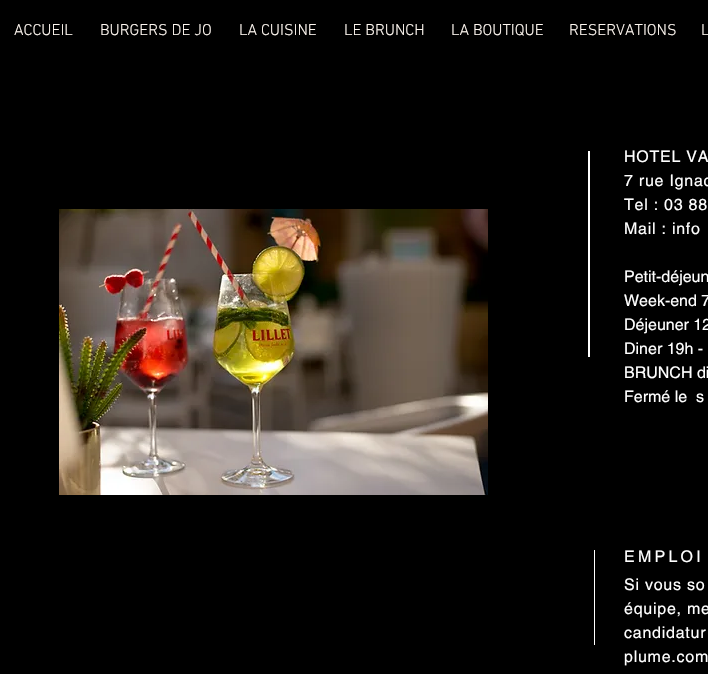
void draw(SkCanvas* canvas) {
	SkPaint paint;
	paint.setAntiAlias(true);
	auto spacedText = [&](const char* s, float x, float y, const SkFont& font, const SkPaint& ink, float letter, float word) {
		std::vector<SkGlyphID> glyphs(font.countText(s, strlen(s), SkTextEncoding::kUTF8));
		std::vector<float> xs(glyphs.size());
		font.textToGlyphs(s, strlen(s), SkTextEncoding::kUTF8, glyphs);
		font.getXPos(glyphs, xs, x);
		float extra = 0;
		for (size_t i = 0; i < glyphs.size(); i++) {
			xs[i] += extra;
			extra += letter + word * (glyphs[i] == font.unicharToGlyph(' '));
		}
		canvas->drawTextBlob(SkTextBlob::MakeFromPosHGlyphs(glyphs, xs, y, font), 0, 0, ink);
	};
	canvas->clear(0xff000000);
	SkFont f1(fontMgr->matchFamilyStyle("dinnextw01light", SkFontStyle(300, SkFontStyle::kNormal_Width, SkFontStyle::kUpright_Slant)), 16);
	f1.setSubpixel(true);
	paint.setColor(0xfffff8f1);
	canvas->drawString("ACCUEIL", 14, 35, f1, paint);
	canvas->drawString("BURGERS DE JO", 100, 35, f1, paint);
	canvas->drawString("LA CUISINE", 239, 35, f1, paint);
	canvas->drawString("LE BRUNCH", 344, 35, f1, paint);
	canvas->drawString("LA BOUTIQUE", 451, 35, f1, paint);
	canvas->drawString("RESERVATIONS", 569, 35, f1, paint);
	canvas->drawString("L", 701, 35, f1, paint);
	canvas->drawImageRect(SkImages::DeferredFromEncodedData(SkData::MakeFromFileName("img1.png")), SkRect::MakeXYWH(59, 209, 429, 286), SkSamplingOptions());
	paint.setColor(0xffffffff);
	canvas->drawRect(SkRect::MakeXYWH(588, 151, 2, 206), paint);
	SkFont f2(fontMgr->matchFamilyStyle("helvetica", SkFontStyle::Normal()), 16);
	f2.setSubpixel(true);
	spacedText("HOTEL VA", 624, 162, f2, paint, 0.75, 0);
	spacedText("7 rue Ignac", 624, 186, f2, paint, 0.75, 0);
	spacedText("Tel : 03 88", 624, 210, f2, paint, 0.75, 0);
	spacedText("Mail : info", 624, 234, f2, paint, 0.75, 0);
	canvas->drawString("Petit-déjeun", 624, 282, f2, paint);
	canvas->drawString("Week-end 7", 624, 306, f2, paint);
	canvas->drawString("Déjeuner 12", 624, 330, f2, paint);
	canvas->drawString("Diner 19h -", 624, 354, f2, paint);
	canvas->drawString("BRUNCH di", 624, 378, f2, paint);
	canvas->drawString("Fermé le  s", 624, 402, f2, paint);
	canvas->drawRect(SkRect::MakeXYWH(594, 550, 1, 95), paint);
	spacedText("EMPLOI", 624, 562, f2, paint, 3.25, 0);
	spacedText("Si vous so", 624, 590, f2, paint, 0.75, 0);
	spacedText("équipe, me", 624, 614, f2, paint, 0.75, 0);
	spacedText("candidatur", 624, 638, f2, paint, 0.75, 0);
	spacedText("plume.com", 624, 662, f2, paint, 0.75, 0);
}
